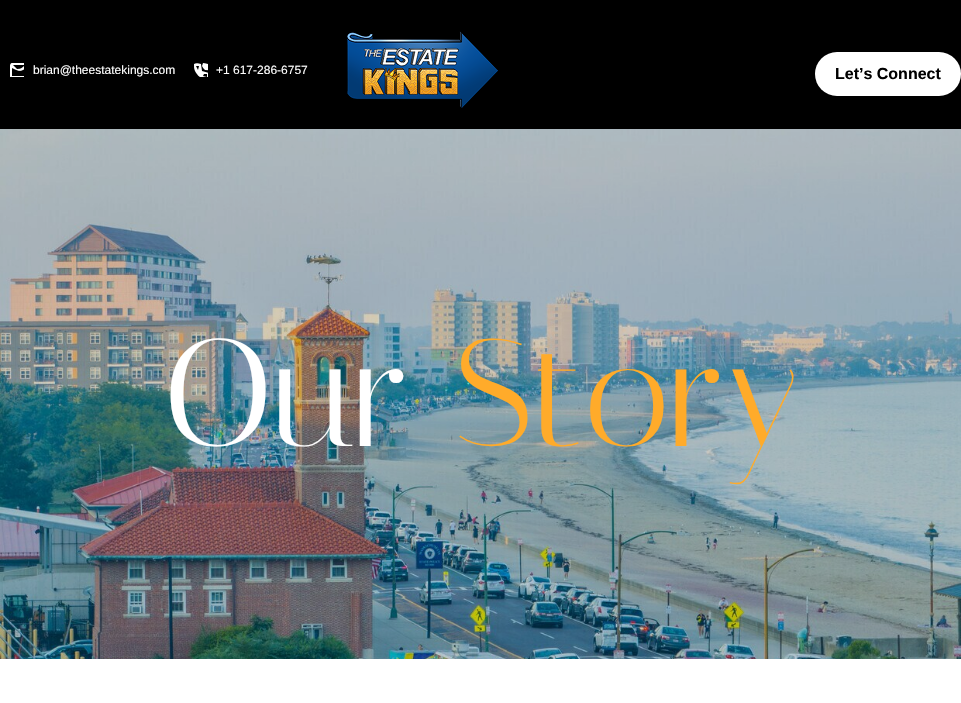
void draw(SkCanvas* canvas) {
	SkPaint paint;
	paint.setAntiAlias(true);
	canvas->clear(0xffffffff);
	paint.setColor(0xff000000);
	canvas->drawRect(SkRect::MakeXYWH(0, 0, 961, 129), paint);
	canvas->drawImageRect(SkImages::DeferredFromEncodedData(SkData::MakeFromFileName("img1.png")), SkRect::MakeXYWH(10, 63, 14, 14), SkSamplingOptions());
	SkFont f1(fontMgr->matchFamilyStyle("Liberation Sans", SkFontStyle::Normal()), 12);
	f1.setSubpixel(true);
	paint.setColor(0xffffffff);
	canvas->drawString("brian@theestatekings.com", 33, 74, f1, paint);
	canvas->drawImageRect(SkImages::DeferredFromEncodedData(SkData::MakeFromFileName("img2.png")), SkRect::MakeXYWH(194, 63, 14, 14), SkSamplingOptions());
	canvas->drawString("+1 617-286-6757", 216, 74, f1, paint);
	canvas->drawImageRect(SkImages::DeferredFromEncodedData(SkData::MakeFromFileName("img3.png")), SkRect::MakeXYWH(347, 31, 151, 77), SkSamplingOptions());
	canvas->drawRoundRect(SkRect::MakeXYWH(815, 52, 146, 44), 22, 22, paint);
	SkFont f2(fontMgr->matchFamilyStyle("Liberation Sans", SkFontStyle::Bold()), 16);
	f2.setSubpixel(true);
	paint.setColor(0xff000000);
	canvas->drawString("Let’s Connect", 835, 79, f2, paint);
	canvas->drawImageRect(SkImages::DeferredFromEncodedData(SkData::MakeFromFileName("img4.png")), SkRect::MakeXYWH(0, 129, 961, 530), SkSamplingOptions());
	SkFont f3(fontMgr->matchFamilyStyle("Italiana", SkFontStyle::Normal()), 153);
	f3.setSubpixel(true);
	paint.setColor(0xffffffff);
	canvas->drawString("Our", 163, 446, f3, paint);
	paint.setColor(0xffffab2a);
	canvas->drawString("Story", 454, 446, f3, paint);
}
